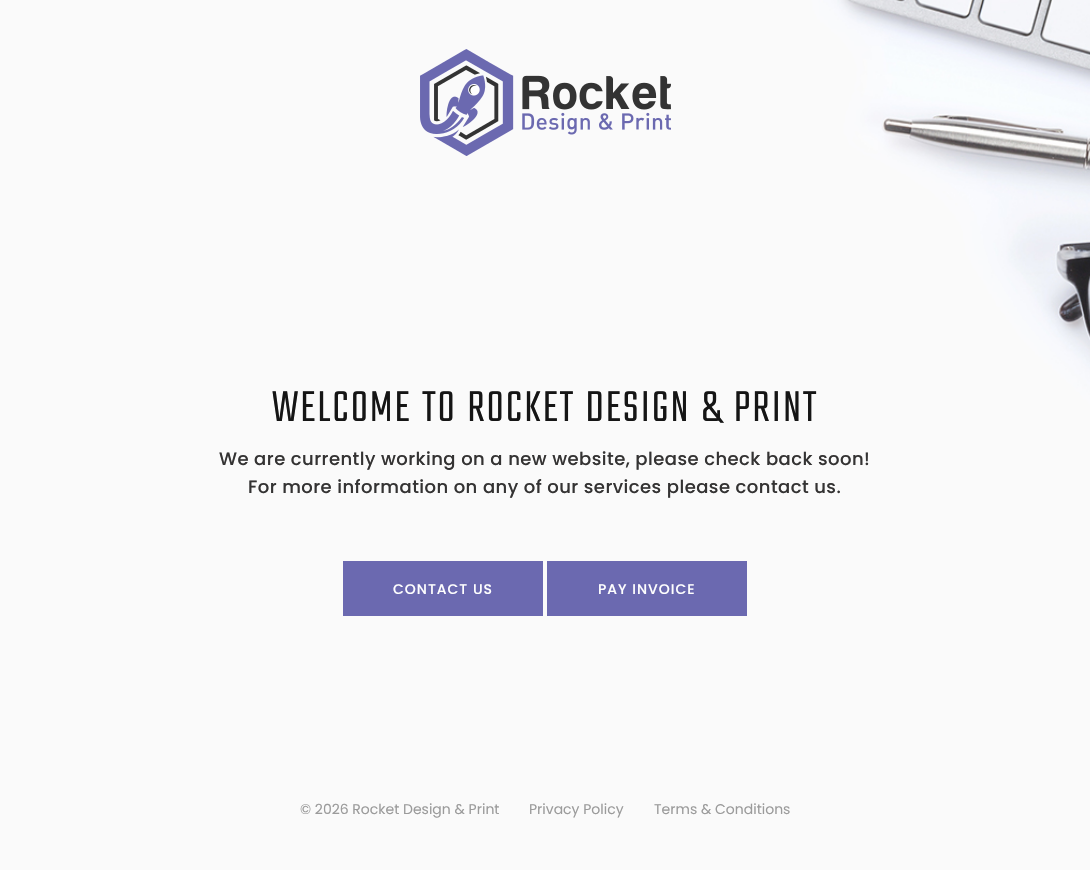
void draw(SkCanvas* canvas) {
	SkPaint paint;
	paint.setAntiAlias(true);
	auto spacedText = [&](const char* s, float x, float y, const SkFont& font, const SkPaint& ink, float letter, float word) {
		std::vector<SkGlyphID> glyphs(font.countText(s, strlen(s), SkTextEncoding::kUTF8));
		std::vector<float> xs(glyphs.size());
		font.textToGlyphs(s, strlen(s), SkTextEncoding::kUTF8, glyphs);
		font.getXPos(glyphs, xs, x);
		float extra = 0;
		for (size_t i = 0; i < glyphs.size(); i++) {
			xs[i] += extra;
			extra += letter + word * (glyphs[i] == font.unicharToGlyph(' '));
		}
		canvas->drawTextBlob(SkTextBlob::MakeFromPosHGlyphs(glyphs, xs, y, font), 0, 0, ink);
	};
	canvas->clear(0xffffffff);
	canvas->drawImageRect(SkImages::DeferredFromEncodedData(SkData::MakeFromFileName("img1.png")), SkRect::MakeXYWH(0, 0, 1090, 870), SkSamplingOptions());
	canvas->drawImageRect(SkImages::DeferredFromEncodedData(SkData::MakeFromFileName("img2.png")), SkRect::MakeXYWH(420, 49, 251, 107), SkSamplingOptions());
	SkFont f1(fontMgr->matchFamilyStyle("Teko", SkFontStyle(300, SkFontStyle::kNormal_Width, SkFontStyle::kUpright_Slant)), 48);
	f1.setSubpixel(true);
	paint.setColor(0xff151515);
	spacedText("WELCOME TO ROCKET DESIGN & PRINT", 272, 421, f1, paint, 1.9, 2.5);
	SkFont f2(fontMgr->matchFamilyStyle("Poppins", SkFontStyle(500, SkFontStyle::kNormal_Width, SkFontStyle::kUpright_Slant)), 18);
	f2.setSubpixel(true);
	paint.setColor(0xff343333);
	spacedText("We are currently working on a new website, please check back soon!", 219, 465, f2, paint, 0.45, 0);
	spacedText("For more information on any of our services please contact us.", 248, 493, f2, paint, 0.45, 0);
	paint.setColor(0xff6b69b0);
	canvas->drawRect(SkRect::MakeXYWH(343, 561, 200, 55), paint);
	SkFont f3(fontMgr->matchFamilyStyle("Poppins", SkFontStyle(500, SkFontStyle::kNormal_Width, SkFontStyle::kUpright_Slant)), 14);
	f3.setSubpixel(true);
	paint.setColor(0xffffffff);
	spacedText("CONTACT US", 393, 594, f3, paint, 1, 0);
	paint.setColor(0xff6b69b0);
	canvas->drawRect(SkRect::MakeXYWH(547, 561, 200, 55), paint);
	paint.setColor(0xffffffff);
	spacedText("PAY INVOICE", 598, 594, f3, paint, 1, 0);
	SkFont f4(fontMgr->matchFamilyStyle("Poppins", SkFontStyle::Normal()), 14);
	f4.setSubpixel(true);
	paint.setColor(0xff9b9b9b);
	canvas->drawString("© 2026 Rocket Design & Print", 300, 814, f4, paint);
	canvas->drawString("Privacy Policy", 529, 814, f4, paint);
	canvas->drawString("Terms & Conditions", 654, 814, f4, paint);
}
